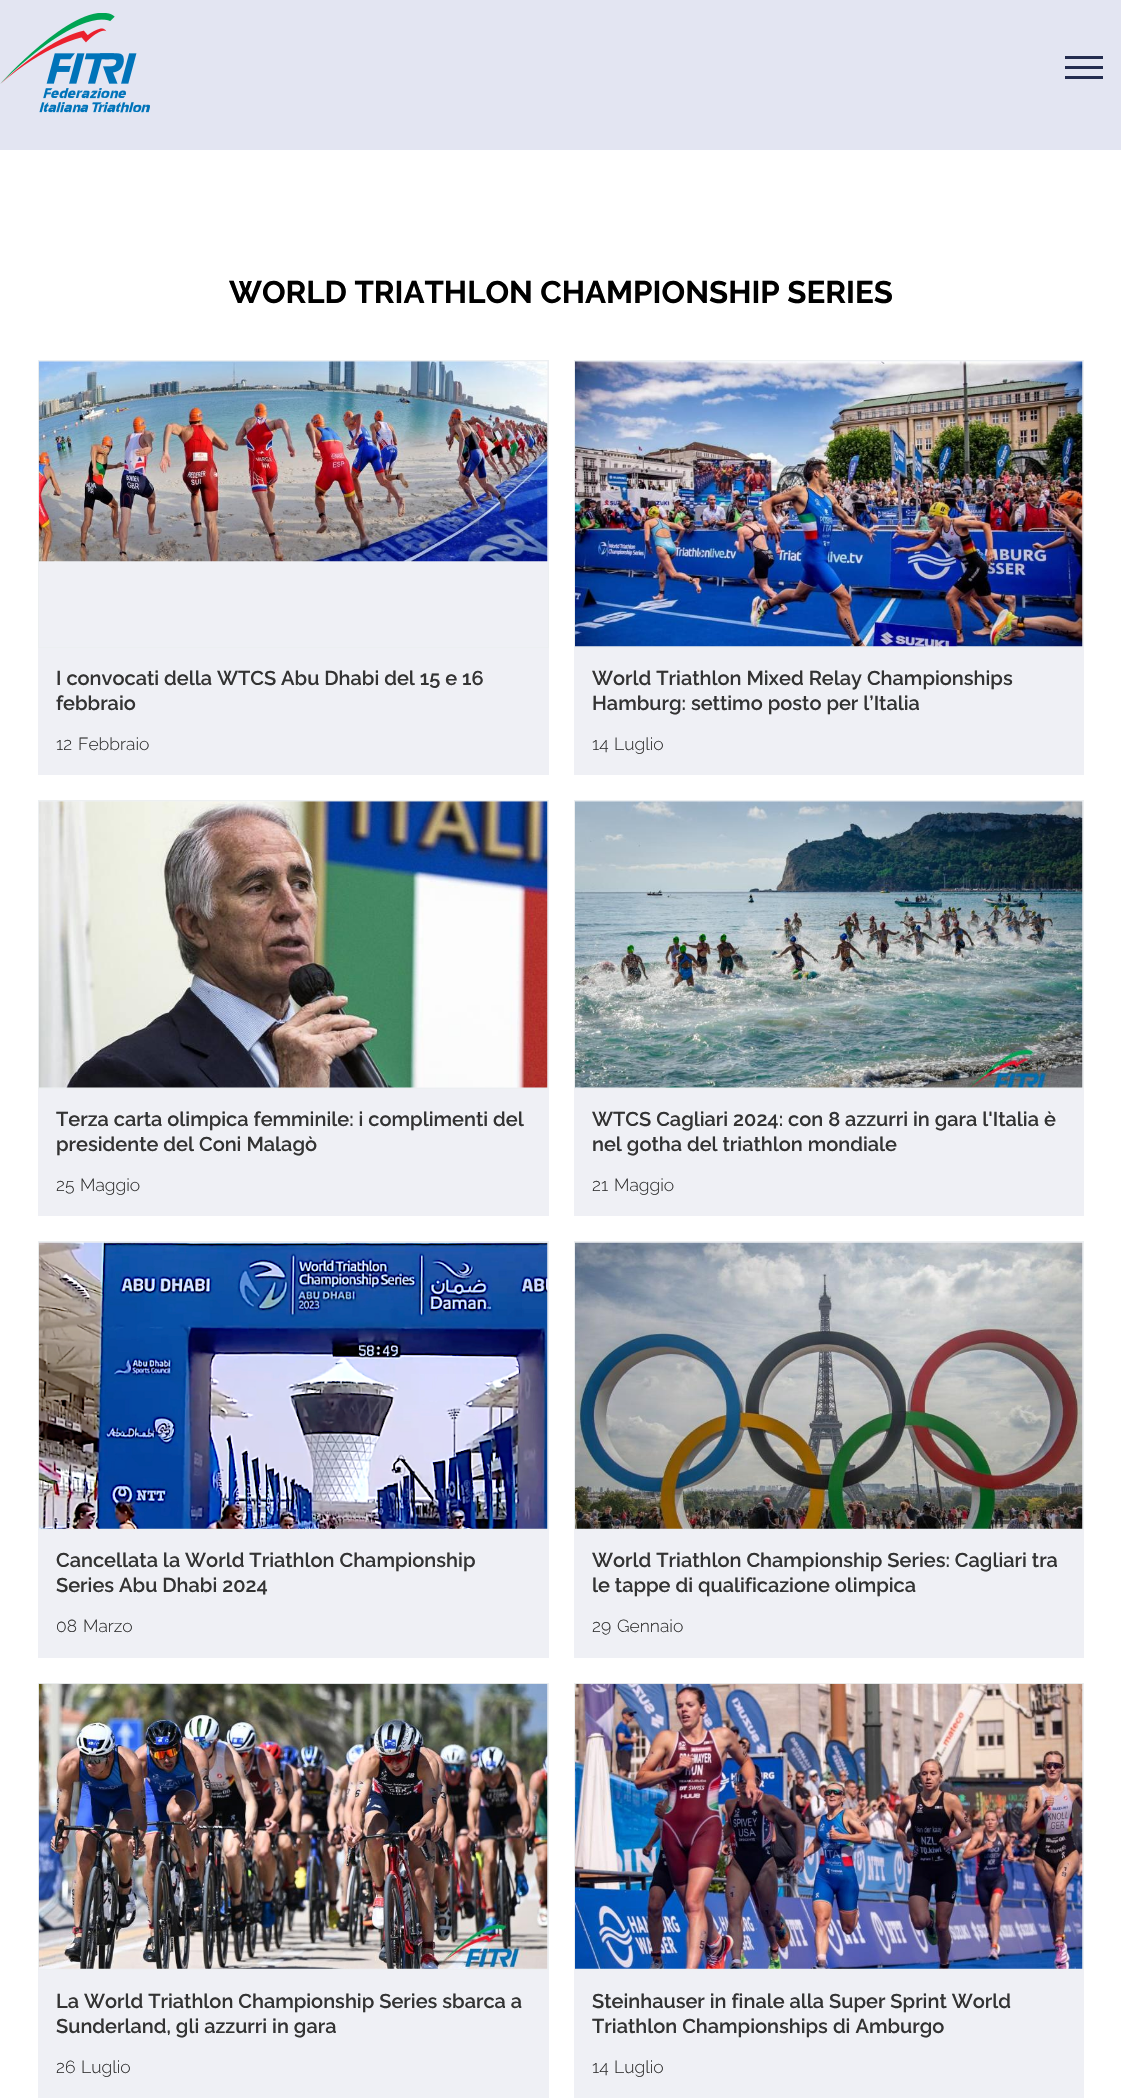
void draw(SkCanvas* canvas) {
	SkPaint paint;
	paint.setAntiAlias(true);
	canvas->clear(0xffffffff);
	paint.setColor(0xffe3e5f2);
	canvas->drawRect(SkRect::MakeXYWH(0, 0, 1121, 150), paint);
	canvas->drawImageRect(SkImages::DeferredFromEncodedData(SkData::MakeFromFileName("img1.png")), SkRect::MakeXYWH(0, 13, 150, 100), SkSamplingOptions());
	paint.setColor(0xff242d50);
	canvas->drawRect(SkRect::MakeXYWH(1065, 56, 38, 3), paint);
	canvas->drawRect(SkRect::MakeXYWH(1065, 66, 38, 3), paint);
	canvas->drawRect(SkRect::MakeXYWH(1065, 76, 38, 3), paint);
	SkFont f1(fontMgr->matchFamilyStyle("Raleway", SkFontStyle::Bold()), 31.25);
	f1.setSubpixel(true);
	paint.setColor(0xff000000);
	canvas->drawString("WORLD TRIATHLON CHAMPIONSHIP SERIES", 229, 303, f1, paint);
	paint.setColor(0xffeff0f5);
	canvas->drawRect(SkRect::MakeXYWH(38.5, 360.5, 510, 287), paint);
	paint.setStroke(true);
	paint.setStrokeWidth(1);
	paint.setColor(0xffeceff1);
	canvas->drawRect(SkRect::MakeXYWH(38.5, 360.5, 510, 287), paint);
	canvas->drawImageRect(SkImages::DeferredFromEncodedData(SkData::MakeFromFileName("img2.png")), SkRect::MakeXYWH(38, 361, 510, 201), SkSamplingOptions());
	paint.setStroke(false);
	paint.setColor(0xffeff0f5);
	canvas->drawRect(SkRect::MakeXYWH(38, 648, 511, 127), paint);
	SkFont f2(fontMgr->matchFamilyStyle("Raleway", SkFontStyle(600, SkFontStyle::kNormal_Width, SkFontStyle::kUpright_Slant)), 20);
	f2.setSubpixel(true);
	paint.setColor(0xff333333);
	canvas->drawString("I convocati della WTCS Abu Dhabi del 15 e 16", 56, 685, f2, paint);
	canvas->drawString("febbraio", 56, 710, f2, paint);
	SkFont f3(fontMgr->matchFamilyStyle("Raleway", SkFontStyle(300, SkFontStyle::kNormal_Width, SkFontStyle::kUpright_Slant)), 17.5);
	f3.setSubpixel(true);
	canvas->drawString("12", 56, 750, f3, paint);
	canvas->drawString("Febbraio", 78, 750, f3, paint);
	paint.setColor(0xffeff0f5);
	canvas->drawRect(SkRect::MakeXYWH(574.5, 360.5, 509, 287), paint);
	paint.setStroke(true);
	paint.setColor(0xffeceff1);
	canvas->drawRect(SkRect::MakeXYWH(574.5, 360.5, 509, 287), paint);
	canvas->drawImageRect(SkImages::DeferredFromEncodedData(SkData::MakeFromFileName("img3.png")), SkRect::MakeXYWH(575, 361, 508, 286), SkSamplingOptions());
	paint.setStroke(false);
	paint.setColor(0xffeff0f5);
	canvas->drawRect(SkRect::MakeXYWH(574, 648, 510, 127), paint);
	paint.setColor(0xff333333);
	canvas->drawString("World Triathlon Mixed Relay Championships", 592, 685, f2, paint);
	canvas->drawString("Hamburg: settimo posto per l’Italia", 592, 710, f2, paint);
	canvas->drawString("14", 592, 750, f3, paint);
	canvas->drawString("Luglio", 614, 750, f3, paint);
	paint.setColor(0xffeff0f5);
	canvas->drawRect(SkRect::MakeXYWH(38.5, 800.5, 510, 288), paint);
	paint.setStroke(true);
	paint.setColor(0xffeceff1);
	canvas->drawRect(SkRect::MakeXYWH(38.5, 800.5, 510, 288), paint);
	canvas->drawImageRect(SkImages::DeferredFromEncodedData(SkData::MakeFromFileName("img4.png")), SkRect::MakeXYWH(39, 801, 509, 287), SkSamplingOptions());
	paint.setStroke(false);
	paint.setColor(0xffeff0f5);
	canvas->drawRect(SkRect::MakeXYWH(38, 1089, 511, 127), paint);
	paint.setColor(0xff333333);
	canvas->drawString("Terza carta olimpica femminile: i complimenti del", 56, 1126, f2, paint);
	canvas->drawString("presidente del Coni Malagò", 56, 1151, f2, paint);
	canvas->drawString("25", 56, 1191, f3, paint);
	canvas->drawString("Maggio", 80, 1191, f3, paint);
	paint.setColor(0xffeff0f5);
	canvas->drawRect(SkRect::MakeXYWH(574.5, 800.5, 509, 288), paint);
	paint.setStroke(true);
	paint.setColor(0xffeceff1);
	canvas->drawRect(SkRect::MakeXYWH(574.5, 800.5, 509, 288), paint);
	canvas->drawImageRect(SkImages::DeferredFromEncodedData(SkData::MakeFromFileName("img5.png")), SkRect::MakeXYWH(575, 801, 508, 287), SkSamplingOptions());
	paint.setStroke(false);
	paint.setColor(0xffeff0f5);
	canvas->drawRect(SkRect::MakeXYWH(574, 1089, 510, 127), paint);
	paint.setColor(0xff333333);
	canvas->drawString("WTCS Cagliari 2024: con 8 azzurri in gara l'Italia è", 592, 1126, f2, paint);
	canvas->drawString("nel gotha del triathlon mondiale", 592, 1151, f2, paint);
	canvas->drawString("21", 592, 1191, f3, paint);
	canvas->drawString("Maggio", 614, 1191, f3, paint);
	paint.setColor(0xffeff0f5);
	canvas->drawRect(SkRect::MakeXYWH(38.5, 1241.5, 510, 288), paint);
	paint.setStroke(true);
	paint.setColor(0xffeceff1);
	canvas->drawRect(SkRect::MakeXYWH(38.5, 1241.5, 510, 288), paint);
	canvas->drawImageRect(SkImages::DeferredFromEncodedData(SkData::MakeFromFileName("img6.png")), SkRect::MakeXYWH(38, 1242, 510, 287), SkSamplingOptions());
	paint.setStroke(false);
	paint.setColor(0xffeff0f5);
	canvas->drawRect(SkRect::MakeXYWH(38, 1530, 511, 128), paint);
	paint.setColor(0xff333333);
	canvas->drawString("Cancellata la World Triathlon Championship", 56, 1567, f2, paint);
	canvas->drawString("Series Abu Dhabi 2024", 56, 1592, f2, paint);
	canvas->drawString("08", 56, 1632, f3, paint);
	canvas->drawString("Marzo", 83, 1632, f3, paint);
	paint.setColor(0xffeff0f5);
	canvas->drawRect(SkRect::MakeXYWH(574.5, 1241.5, 509, 288), paint);
	paint.setStroke(true);
	paint.setColor(0xffeceff1);
	canvas->drawRect(SkRect::MakeXYWH(574.5, 1241.5, 509, 288), paint);
	canvas->drawImageRect(SkImages::DeferredFromEncodedData(SkData::MakeFromFileName("img7.png")), SkRect::MakeXYWH(575, 1242, 508, 287), SkSamplingOptions());
	paint.setStroke(false);
	paint.setColor(0xffeff0f5);
	canvas->drawRect(SkRect::MakeXYWH(574, 1530, 510, 128), paint);
	paint.setColor(0xff333333);
	canvas->drawString("World Triathlon Championship Series: Cagliari tra", 592, 1567, f2, paint);
	canvas->drawString("le tappe di qualificazione olimpica", 592, 1592, f2, paint);
	canvas->drawString("29", 592, 1632, f3, paint);
	canvas->drawString("Gennaio", 617, 1632, f3, paint);
	paint.setColor(0xffeff0f5);
	canvas->drawRect(SkRect::MakeXYWH(38.5, 1683.5, 510, 286), paint);
	paint.setStroke(true);
	paint.setColor(0xffeceff1);
	canvas->drawRect(SkRect::MakeXYWH(38.5, 1683.5, 510, 286), paint);
	canvas->drawImageRect(SkImages::DeferredFromEncodedData(SkData::MakeFromFileName("img8.png")), SkRect::MakeXYWH(38, 1683, 510, 286), SkSamplingOptions());
	paint.setStroke(false);
	paint.setColor(0xffeff0f5);
	canvas->drawRect(SkRect::MakeXYWH(38, 1970, 511, 128), paint);
	paint.setColor(0xff333333);
	canvas->drawString("La World Triathlon Championship Series sbarca a", 56, 2008, f2, paint);
	canvas->drawString("Sunderland, gli azzurri in gara", 56, 2033, f2, paint);
	canvas->drawString("26", 56, 2073, f3, paint);
	canvas->drawString("Luglio", 81, 2073, f3, paint);
	paint.setColor(0xffeff0f5);
	canvas->drawRect(SkRect::MakeXYWH(574.5, 1683.5, 509, 286), paint);
	paint.setStroke(true);
	paint.setColor(0xffeceff1);
	canvas->drawRect(SkRect::MakeXYWH(574.5, 1683.5, 509, 286), paint);
	canvas->drawImageRect(SkImages::DeferredFromEncodedData(SkData::MakeFromFileName("img9.png")), SkRect::MakeXYWH(575, 1683, 508, 286), SkSamplingOptions());
	paint.setStroke(false);
	paint.setColor(0xffeff0f5);
	canvas->drawRect(SkRect::MakeXYWH(574, 1970, 510, 128), paint);
	paint.setColor(0xff333333);
	canvas->drawString("Steinhauser in finale alla Super Sprint World", 592, 2008, f2, paint);
	canvas->drawString("Triathlon Championships di Amburgo", 592, 2033, f2, paint);
	canvas->drawString("14", 592, 2073, f3, paint);
	canvas->drawString("Luglio", 614, 2073, f3, paint);
}
